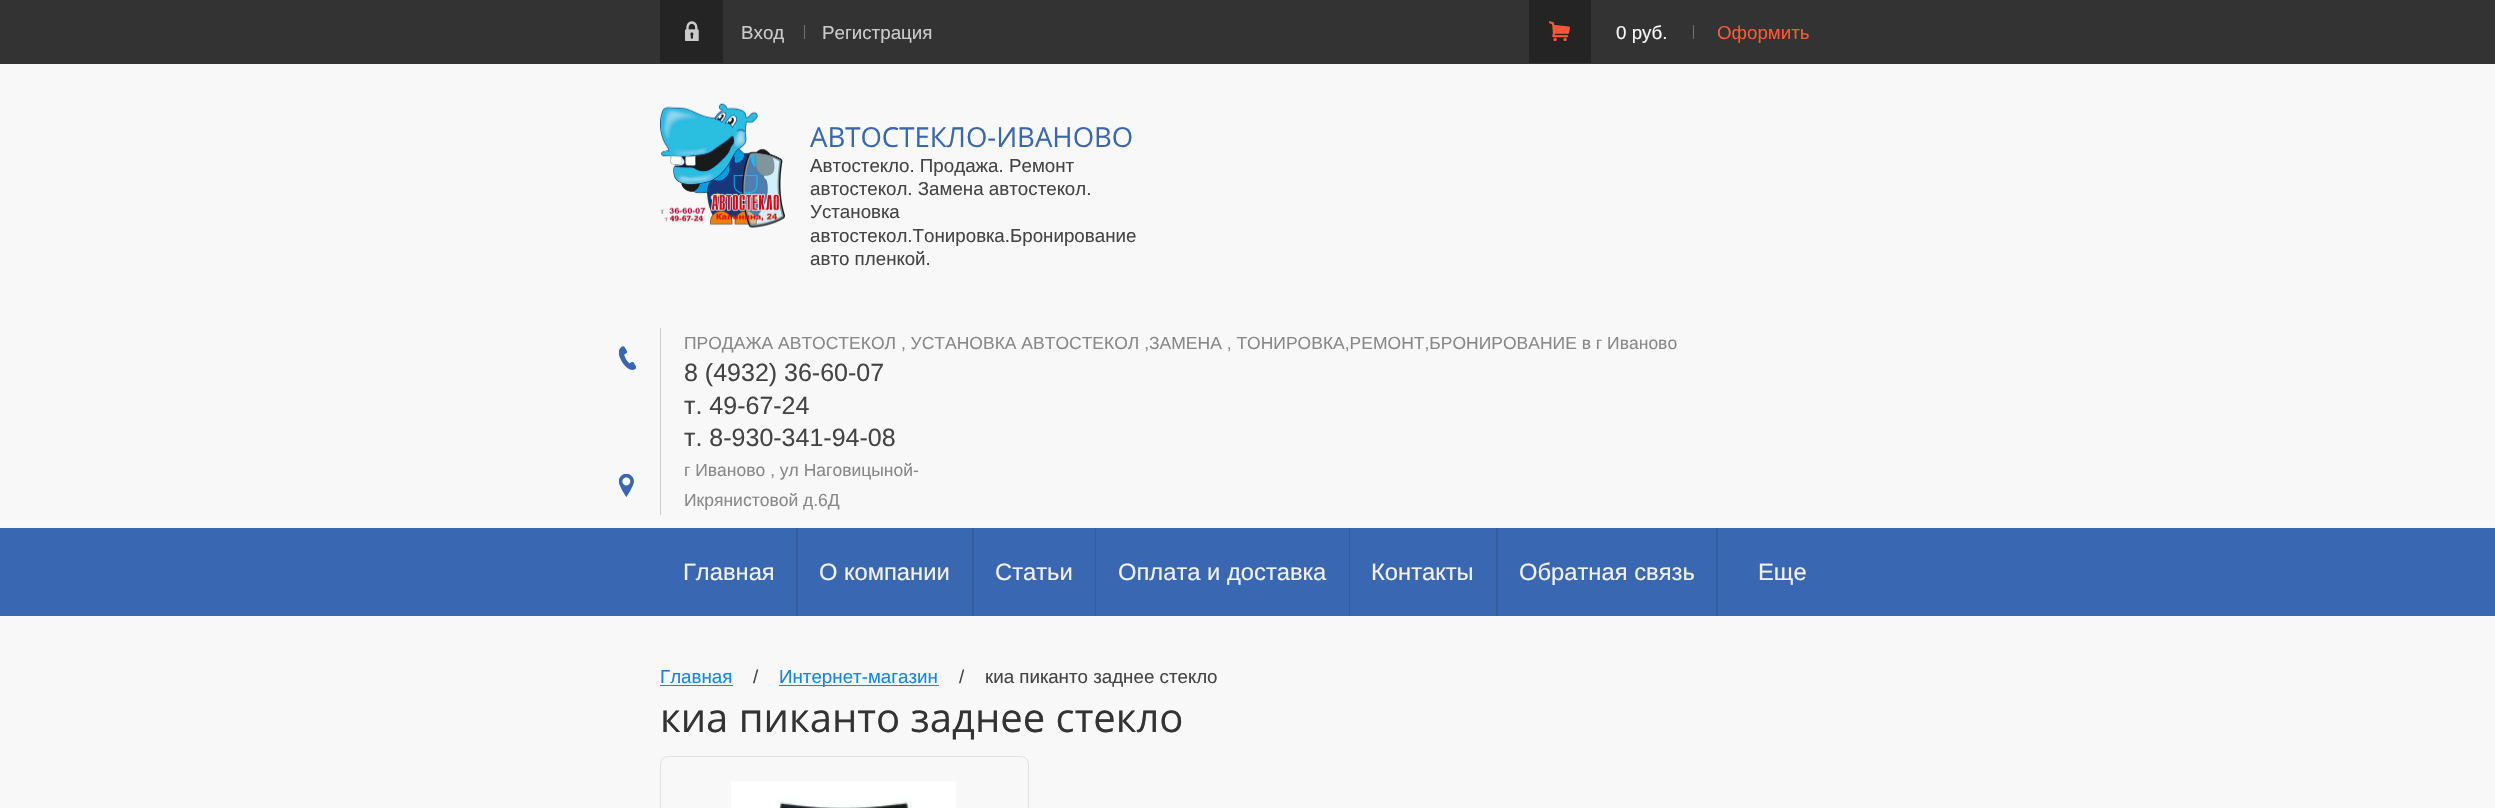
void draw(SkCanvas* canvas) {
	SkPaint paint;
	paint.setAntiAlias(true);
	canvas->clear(0xfff8f8f8);
	paint.setColor(0xff333333);
	canvas->drawRect(SkRect::MakeXYWH(0, 0, 2495, 64), paint);
	paint.setColor(0xff242424);
	canvas->drawRect(SkRect::MakeXYWH(660, 0, 63, 63), paint);
	canvas->drawImageRect(SkImages::DeferredFromEncodedData(SkData::MakeFromFileName("img1.png")), SkRect::MakeXYWH(685, 21, 14, 20), SkSamplingOptions());
	SkFont f1(fontMgr->matchFamilyStyle("Liberation Sans", SkFontStyle::Normal()), 18.75);
	f1.setSubpixel(true);
	paint.setColor(0xffcbcbcb);
	canvas->drawString("Вход", 741, 39, f1, paint);
	paint.setColor(0xff707070);
	canvas->drawRect(SkRect::MakeXYWH(804, 25, 1, 14), paint);
	paint.setColor(0xffcbcbcb);
	canvas->drawString("Регистрация", 822, 39, f1, paint);
	paint.setColor(0xff242424);
	canvas->drawRect(SkRect::MakeXYWH(1529, 0, 62, 63), paint);
	canvas->drawImageRect(SkImages::DeferredFromEncodedData(SkData::MakeFromFileName("img2.png")), SkRect::MakeXYWH(1549, 21, 21, 20), SkSamplingOptions());
	paint.setColor(0xfff8f8f8);
	canvas->drawString("0 руб.", 1616, 39, f1, paint);
	paint.setColor(0xff707070);
	canvas->drawRect(SkRect::MakeXYWH(1693, 25, 1, 14), paint);
	paint.setColor(0xffff5736);
	canvas->drawString("Оформить", 1717, 39, f1, paint);
	canvas->drawImageRect(SkImages::DeferredFromEncodedData(SkData::MakeFromFileName("img3.png")), SkRect::MakeXYWH(660, 103, 125, 125), SkSamplingOptions());
	SkFont f2(fontMgr->matchFamilyStyle("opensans", SkFontStyle::Normal()), 27.5);
	f2.setSubpixel(true);
	paint.setColor(0xff3a67b2);
	canvas->drawString("АВТОСТЕКЛО-ИВАНОВО", 810, 147, f2, paint);
	paint.setColor(0xff444444);
	canvas->drawString("Автостекло. Продажа. Ремонт", 810, 172, f1, paint);
	canvas->drawString("автостекол. Замена автостекол.", 810, 195, f1, paint);
	canvas->drawString("Установка", 810, 218, f1, paint);
	canvas->drawString("автостекол.Тонировка.Бронирование", 810, 242, f1, paint);
	canvas->drawString("авто пленкой.", 810, 265, f1, paint);
	paint.setColor(0xffcccccc);
	canvas->drawRect(SkRect::MakeXYWH(660, 328, 1, 187), paint);
	canvas->drawImageRect(SkImages::DeferredFromEncodedData(SkData::MakeFromFileName("img4.png")), SkRect::MakeXYWH(619, 346, 17, 24), SkSamplingOptions());
	SkFont f3(fontMgr->matchFamilyStyle("Liberation Sans", SkFontStyle::Normal()), 17.5);
	f3.setSubpixel(true);
	paint.setColor(0xff888888);
	canvas->drawString("ПРОДАЖА АВТОСТЕКОЛ , УСТАНОВКА АВТОСТЕКОЛ ,ЗАМЕНА , ТОНИРОВКА,РЕМОНТ,БРОНИРОВАНИЕ в г Иваново", 684, 349, f3, paint);
	SkFont f4(fontMgr->matchFamilyStyle("Liberation Sans", SkFontStyle::Normal()), 25);
	f4.setSubpixel(true);
	paint.setColor(0xff444444);
	canvas->drawString("8 (4932) 36-60-07", 684, 381, f4, paint);
	canvas->drawString("т. 49-67-24", 684, 414, f4, paint);
	canvas->drawString("т. 8-930-341-94-08", 684, 446, f4, paint);
	paint.setColor(0xff888888);
	canvas->drawString("г Иваново , ул Наговицыной-", 684, 476, f3, paint);
	canvas->drawImageRect(SkImages::DeferredFromEncodedData(SkData::MakeFromFileName("img5.png")), SkRect::MakeXYWH(619, 474, 15, 23), SkSamplingOptions());
	canvas->drawString("Икрянистовой д.6Д", 684, 506, f3, paint);
	paint.setColor(0xff3a67b2);
	canvas->drawRect(SkRect::MakeXYWH(0, 528, 2495, 88), paint);
	paint.setColor(0xff345da0);
	canvas->drawRect(SkRect::MakeXYWH(796, 528, 2, 88), paint);
	SkFont f5(fontMgr->matchFamilyStyle("Liberation Sans", SkFontStyle::Normal()), 23.75);
	f5.setSubpixel(true);
	paint.setColor(0xfff2f2f2);
	canvas->drawString("Главная", 683, 580, f5, paint);
	paint.setColor(0xff345da0);
	canvas->drawRect(SkRect::MakeXYWH(972, 528, 2, 88), paint);
	paint.setColor(0xfff2f2f2);
	canvas->drawString("О компании", 819, 580, f5, paint);
	paint.setColor(0xff345da0);
	canvas->drawRect(SkRect::MakeXYWH(1095, 528, 1, 88), paint);
	paint.setColor(0xfff2f2f2);
	canvas->drawString("Статьи", 995, 580, f5, paint);
	paint.setColor(0xff345da0);
	canvas->drawRect(SkRect::MakeXYWH(1349, 528, 1, 88), paint);
	paint.setColor(0xfff2f2f2);
	canvas->drawString("Оплата и доставка", 1118, 580, f5, paint);
	paint.setColor(0xff345da0);
	canvas->drawRect(SkRect::MakeXYWH(1496, 528, 2, 88), paint);
	paint.setColor(0xfff2f2f2);
	canvas->drawString("Контакты", 1371, 580, f5, paint);
	paint.setColor(0xff345da0);
	canvas->drawRect(SkRect::MakeXYWH(1716, 528, 2, 88), paint);
	paint.setColor(0xfff2f2f2);
	canvas->drawString("Обратная связь", 1519, 580, f5, paint);
	canvas->drawString("Еще", 1758, 580, f5, paint);
	paint.setColor(0xff1684eb);
	canvas->drawString("Главная", 660, 683, f1, paint);
	canvas->drawRect(SkRect::MakeXYWH(660, 685, 73, 1), paint);
	paint.setColor(0xff444444);
	canvas->drawString("/", 753, 683, f1, paint);
	paint.setColor(0xff1684eb);
	canvas->drawRect(SkRect::MakeXYWH(779, 685, 160, 1), paint);
	canvas->drawString("Интернет-магазин", 779, 683, f1, paint);
	paint.setColor(0xff444444);
	canvas->drawString("/", 959, 683, f1, paint);
	canvas->drawString("киа пиканто заднее стекло", 985, 683, f1, paint);
	SkFont f6(fontMgr->matchFamilyStyle("opensans", SkFontStyle::Normal()), 40);
	f6.setSubpixel(true);
	paint.setColor(0xff333333);
	canvas->drawString("киа пиканто заднее стекло", 660, 732, f6, paint);
	paint.setStroke(true);
	paint.setStrokeWidth(1);
	paint.setColor(0xffe3e3e3);
	canvas->drawRoundRect(SkRect::MakeXYWH(660.5, 756.5, 368, 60), 7.5, 7.5, paint);
	canvas->drawImageRect(SkImages::DeferredFromEncodedData(SkData::MakeFromFileName("img6.png")), SkRect::MakeXYWH(731, 781, 225, 27), SkSamplingOptions());
}
